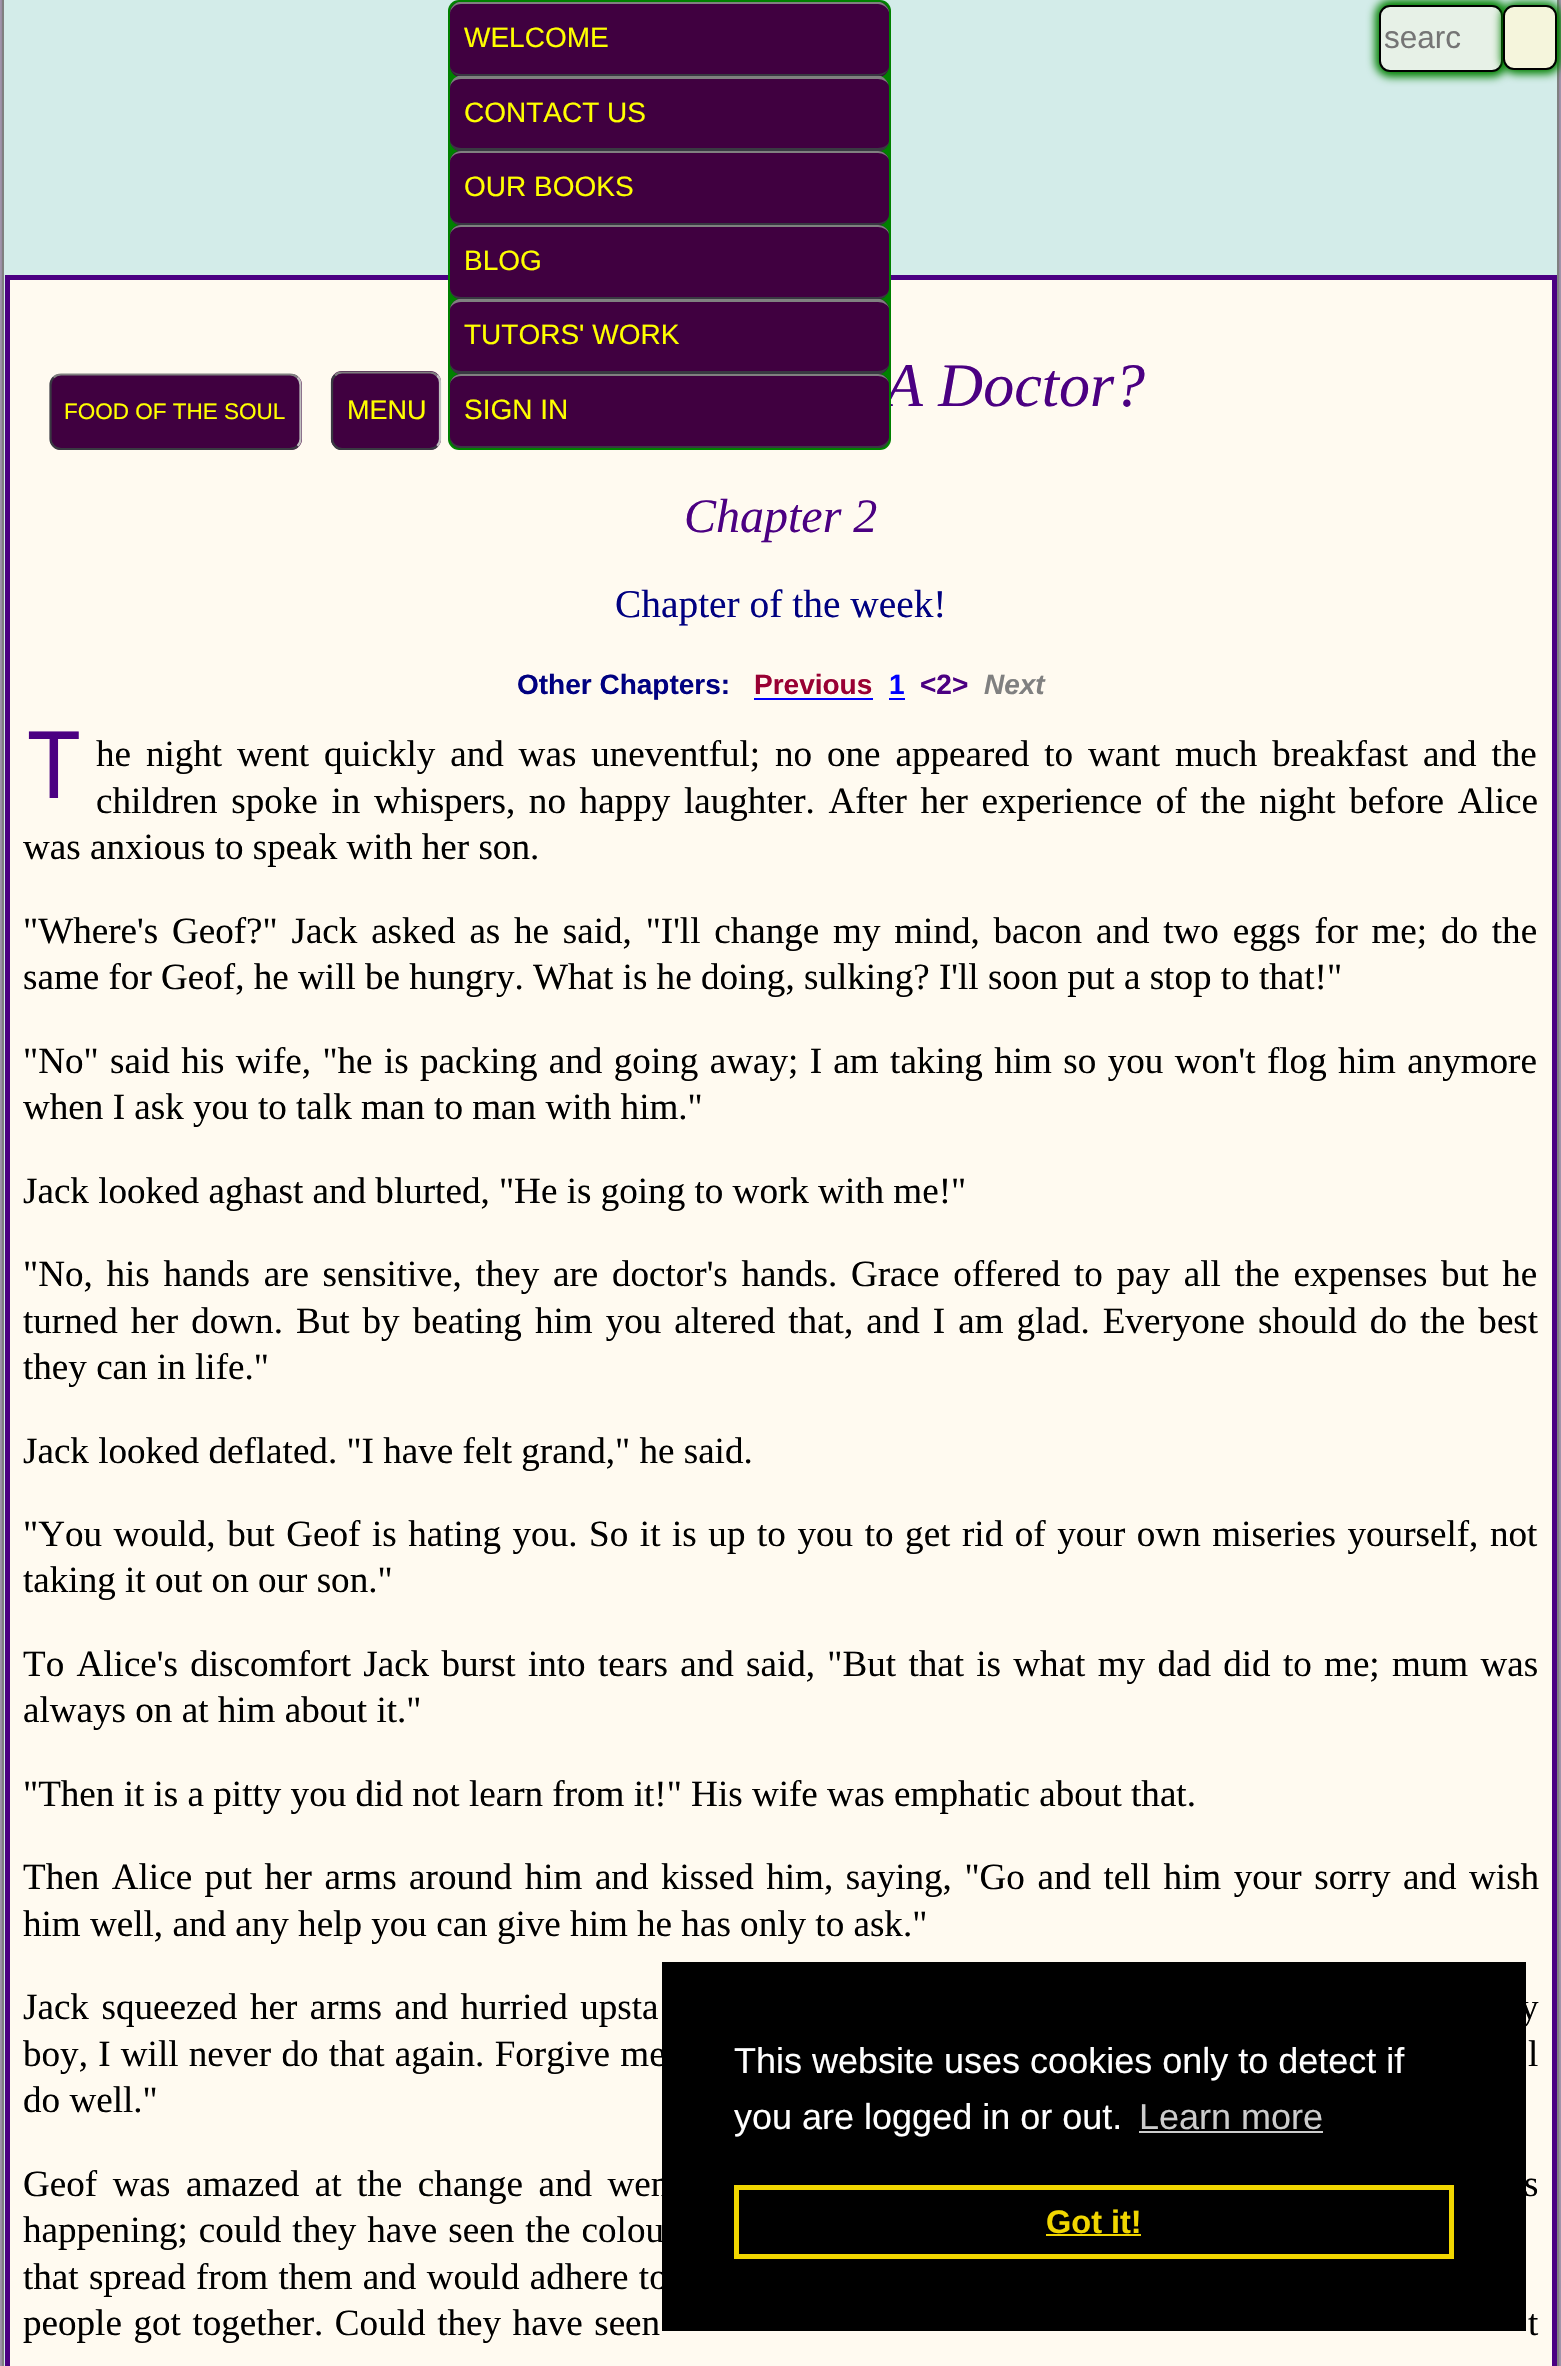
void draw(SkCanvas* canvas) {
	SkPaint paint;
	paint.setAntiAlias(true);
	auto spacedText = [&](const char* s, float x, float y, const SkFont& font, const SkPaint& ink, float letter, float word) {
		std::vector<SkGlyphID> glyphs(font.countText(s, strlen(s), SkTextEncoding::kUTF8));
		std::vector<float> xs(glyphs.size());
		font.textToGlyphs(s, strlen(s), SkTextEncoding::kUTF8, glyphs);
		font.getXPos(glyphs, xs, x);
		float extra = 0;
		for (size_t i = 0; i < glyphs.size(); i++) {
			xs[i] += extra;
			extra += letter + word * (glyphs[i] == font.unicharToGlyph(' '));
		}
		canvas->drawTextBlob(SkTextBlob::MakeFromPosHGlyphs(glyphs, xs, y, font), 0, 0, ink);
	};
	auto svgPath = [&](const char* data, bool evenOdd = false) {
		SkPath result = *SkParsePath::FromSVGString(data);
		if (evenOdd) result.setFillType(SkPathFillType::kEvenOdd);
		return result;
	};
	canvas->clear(0xffffffff);
	paint.setColor(0xff2b1041);
	paint.setMaskFilter(SkMaskFilter::MakeBlur(kNormal_SkBlurStyle, 11));
	canvas->drawRoundRect(SkRect::MakeXYWH(2, -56, 1557, 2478), 23, 23, paint);
	paint.setMaskFilter(nullptr);
	paint.setColor(0xffd3ece9);
	canvas->drawRect(SkRect::MakeXYWH(3, -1, 1555, 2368), paint);
	paint.setStroke(true);
	paint.setStrokeWidth(2);
	paint.setColor(0xff808080);
	canvas->drawRect(SkRect::MakeXYWH(3, -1, 1555, 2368), paint);
	paint.setStroke(false);
	paint.setColor(0xfffffaf0);
	canvas->drawRect(SkRect::MakeXYWH(7.5, 277.5, 1547, 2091), paint);
	paint.setStroke(true);
	paint.setStrokeWidth(5);
	paint.setColor(0xff4b0082);
	canvas->drawRect(SkRect::MakeXYWH(7.5, 277.5, 1547, 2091), paint);
	SkFont f1(fontMgr->matchFamilyStyle("Liberation Serif", SkFontStyle::Italic()), 62);
	f1.setSubpixel(true);
	paint.setStroke(false);
	canvas->drawString("A Doctor?", 885, 406, f1, paint);
	paint.setColor(0xff008000);
	canvas->drawRoundRect(SkRect::MakeXYWH(448, 0, 443, 450), 11, 11, paint);
	paint.setColor(0xff400040);
	canvas->drawRoundRect(SkRect::MakeXYWH(450, 2, 439, 75), 11, 11, paint);
	paint.setColor(0xff808080);
	canvas->drawPath(svgPath("M461 4C455 4 450 9 450 14C450 8 454 3 459 2H880C884 3 888 7 889 11V12C888 8 883 4 878 4Z"), paint);
	paint.setColor(0xff393942);
	canvas->drawPath(svgPath("M889 67C888 72 883 76 878 76H461C455 76 450 71 450 65C450 70 455 74 461 74H878C883 74 888 71 889 67Z"), paint);
	SkFont f2(fontMgr->matchFamilyStyle("Liberation Sans", SkFontStyle::Normal()), 28);
	f2.setSubpixel(true);
	paint.setColor(0xffffff00);
	canvas->drawString("WELCOME", 464, 47, f2, paint);
	paint.setColor(0xff400040);
	canvas->drawRoundRect(SkRect::MakeXYWH(450, 77, 439, 74), 11, 11, paint);
	paint.setColor(0xff808080);
	canvas->drawPath(svgPath("M461 79C455 79 450 83 450 88C450 83 453 78 458 76H881C885 78 888 82 889 86C888 82 883 79 878 79Z"), paint);
	paint.setColor(0xff393942);
	canvas->drawPath(svgPath("M459 151C454 150 450 145 450 140C450 144 455 148 461 148H878C883 148 888 145 889 142C889 145 884 151 880 151Z"), paint);
	paint.setColor(0xffffff00);
	canvas->drawString("CONTACT US", 464, 122, f2, paint);
	paint.setColor(0xff400040);
	canvas->drawRoundRect(SkRect::MakeXYWH(450, 151, 439, 74), 11, 11, paint);
	paint.setColor(0xff808080);
	canvas->drawPath(svgPath("M461 151H878C883 151 888 155 889 160C888 156 883 153 878 153H461C455 153 450 157 450 162C450 156 455 151 461 151Z"), paint);
	paint.setColor(0xff393942);
	canvas->drawPath(svgPath("M461 225H878C883 225 888 221 889 216C888 220 883 223 878 223H461C455 223 450 219 450 214C450 220 455 225 461 225Z"), paint);
	paint.setColor(0xffffff00);
	canvas->drawString("OUR BOOKS", 464, 196, f2, paint);
	paint.setColor(0xff400040);
	canvas->drawRoundRect(SkRect::MakeXYWH(450, 225, 439, 74), 11, 11, paint);
	paint.setColor(0xff808080);
	canvas->drawPath(svgPath("M461 225C455 225 450 230 450 236C450 231 455 227 461 227H878C883 227 888 230 889 234C889 229 883 225 878 225Z"), paint);
	paint.setColor(0xff393942);
	canvas->drawPath(svgPath("M889 290C888 295 883 299 878 299H461C455 299 450 294 450 288C450 293 455 297 461 297H878C883 297 888 294 889 290Z"), paint);
	paint.setColor(0xffffff00);
	canvas->drawString("BLOG", 464, 270, f2, paint);
	paint.setColor(0xff400040);
	canvas->drawRoundRect(SkRect::MakeXYWH(450, 299, 439, 75), 11, 11, paint);
	paint.setColor(0xff808080);
	canvas->drawPath(svgPath("M461 302C455 302 450 306 450 310C450 305 454 300 459 299H880C884 300 888 304 889 308C888 305 883 302 878 302Z"), paint);
	paint.setColor(0xff393942);
	canvas->drawPath(svgPath("M458 374C453 372 450 367 450 362C450 367 455 371 461 371H878C883 371 888 368 889 364C888 368 885 372 881 374Z"), paint);
	paint.setColor(0xffffff00);
	canvas->drawString("TUTORS' WORK", 464, 344, f2, paint);
	paint.setColor(0xff400040);
	canvas->drawRoundRect(SkRect::MakeXYWH(450, 374, 439, 74), 11, 11, paint);
	paint.setColor(0xff808080);
	canvas->drawPath(svgPath("M461 374H878C883 374 888 378 889 383C888 379 883 376 878 376H461C455 376 450 380 450 385C450 379 455 374 461 374Z"), paint);
	paint.setColor(0xff393942);
	canvas->drawPath(svgPath("M459 448C454 447 450 442 450 436C450 441 455 446 461 446H878C883 446 888 442 889 438C889 442 885 448 880 448Z"), paint);
	paint.setColor(0xffffff00);
	canvas->drawString("SIGN IN", 464, 419, f2, paint);
	paint.setColor(0xff008000);
	paint.setMaskFilter(SkMaskFilter::MakeBlur(kNormal_SkBlurStyle, 4.5));
	canvas->drawRoundRect(SkRect::MakeXYWH(1375, 0, 133, 77), 16, 16, paint);
	paint.setMaskFilter(nullptr);
	paint.setColor(0xffe7f1e7);
	canvas->drawRoundRect(SkRect::MakeXYWH(1380, 6, 122, 65), 10, 10, paint);
	paint.setStroke(true);
	paint.setStrokeWidth(2);
	paint.setColor(0xff000000);
	canvas->drawRoundRect(SkRect::MakeXYWH(1380, 6, 122, 65), 10, 10, paint);
	SkFont f3(fontMgr->matchFamilyStyle("Liberation Sans", SkFontStyle::Normal()), 31.5);
	f3.setSubpixel(true);
	paint.setStroke(false);
	paint.setColor(0xff757575);
	canvas->drawString("searc", 1384, 48, f3, paint);
	paint.setColor(0xff008000);
	paint.setMaskFilter(SkMaskFilter::MakeBlur(kNormal_SkBlurStyle, 4));
	canvas->drawRoundRect(SkRect::MakeXYWH(1501, 2, 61, 72), 16, 16, paint);
	paint.setMaskFilter(nullptr);
	paint.setColor(0xfff5f5dc);
	canvas->drawRoundRect(SkRect::MakeXYWH(1504, 6, 52, 63), 10, 10, paint);
	paint.setStroke(true);
	paint.setColor(0xff000000);
	canvas->drawRoundRect(SkRect::MakeXYWH(1504, 6, 52, 63), 10, 10, paint);
	paint.setStroke(false);
	paint.setColor(0xff400040);
	canvas->drawRoundRect(SkRect::MakeXYWH(50, 374, 252, 76), 11, 11, paint);
	paint.setStroke(true);
	paint.setStrokeWidth(2.2);
	paint.setColor(0xff808080);
	canvas->drawPath(svgPath("M53.5 377.5C55.5 375.5 58 374.5 61 374.5H290C293 374.5 295.5 375.5 297.5 377.5"), paint);
	paint.setColor(0xffc0c0c0);
	canvas->drawPath(svgPath("M297.5 377.5C299.5 379.5 300.5 382 300.5 385V439C300.5 441.5 299.5 444 297.5 446"), paint);
	paint.setColor(0xff393942);
	canvas->drawPath(svgPath("M297.5 446C295.5 448 293 449 290 449H61C58 449 55.5 448 53.5 446C51.5 444 50.5 441.5 50.5 439V385C50.5 382 51.5 379.5 53.5 377.5"), paint);
	SkFont f4(fontMgr->matchFamilyStyle("Liberation Sans", SkFontStyle::Normal()), 22.5);
	f4.setSubpixel(true);
	paint.setStroke(false);
	paint.setColor(0xffffff00);
	canvas->drawString("FOOD OF THE SOUL", 64, 419, f4, paint);
	paint.setColor(0xff400040);
	canvas->drawRoundRect(SkRect::MakeXYWH(331, 371, 110, 79), 11, 11, paint);
	paint.setStroke(true);
	paint.setColor(0xff808080);
	canvas->drawPath(svgPath("M335 375.5C336.5 373.5 339.5 372.5 342 372.5H430C432.5 372.5 435 373.5 437 375.5"), paint);
	paint.setColor(0xffc0c0c0);
	canvas->drawPath(svgPath("M437 375.5C439 377 440 380 440 382.5V439C440 441.5 439 444 437 446"), paint);
	paint.setColor(0xff393942);
	canvas->drawPath(svgPath("M437 446C435 448 432.5 449 430 449H342C339.5 449 336.5 448 335 446C333 444 332 441.5 332 439V382.5C332 380 333 377 335 375.5"), paint);
	SkFont f5(fontMgr->matchFamilyStyle("Liberation Sans", SkFontStyle::Normal()), 27);
	f5.setSubpixel(true);
	paint.setStroke(false);
	paint.setColor(0xffffff00);
	canvas->drawString("MENU", 347, 419, f5, paint);
	SkFont f6(fontMgr->matchFamilyStyle("Liberation Serif", SkFontStyle::Italic()), 48);
	f6.setSubpixel(true);
	paint.setColor(0xff4b0082);
	canvas->drawString("Chapter 2", 684, 532, f6, paint);
	SkFont f7(fontMgr->matchFamilyStyle("Liberation Serif", SkFontStyle::Normal()), 39.4);
	f7.setSubpixel(true);
	paint.setColor(0xff000080);
	canvas->drawString("Chapter of the week!", 615, 617, f7, paint);
	SkFont f8(fontMgr->matchFamilyStyle("Liberation Sans", SkFontStyle::Bold()), 28);
	f8.setSubpixel(true);
	canvas->drawString("Other Chapters:", 517, 694, f8, paint);
	paint.setColor(0xff990033);
	canvas->drawString("Previous", 754, 694, f8, paint);
	paint.setColor(0xff0000ff);
	canvas->drawRect(SkRect::MakeXYWH(754, 698, 119, 2), paint);
	canvas->drawString("1", 889, 694, f8, paint);
	canvas->drawRect(SkRect::MakeXYWH(889, 698, 16, 2), paint);
	paint.setColor(0xff4b0082);
	canvas->drawString("<2>", 920, 694, f8, paint);
	SkFont f9(fontMgr->matchFamilyStyle("Liberation Sans", SkFontStyle::BoldItalic()), 28);
	f9.setSubpixel(true);
	paint.setColor(0xff808080);
	canvas->drawString("Next", 984, 694, f9, paint);
	SkFont f10(fontMgr->matchFamilyStyle("Noto Sans", SkFontStyle::Normal()), 93);
	f10.setSubpixel(true);
	paint.setColor(0xff4b0082);
	canvas->drawString("T", 28, 798, f10, paint);
	SkFont f11(fontMgr->matchFamilyStyle("Liberation Serif", SkFontStyle::Normal()), 37.1);
	f11.setSubpixel(true);
	paint.setColor(0xff000000);
	spacedText("he night went quickly and was uneventful; no one appeared to want much breakfast and the", 96, 766, f11, paint, 0, 5.6);
	spacedText("children spoke in whispers, no happy laughter. After her experience of the night before Alice", 96, 813, f11, paint, 0, 4.4);
	canvas->drawString("was anxious to speak with her son.", 23, 859, f11, paint);
	spacedText("\"Where's Geof?\" Jack asked as he said, \"I'll change my mind, bacon and two eggs for me; do the", 23, 943, f11, paint, 0, 4.5);
	canvas->drawString("same for Geof, he will be hungry. What is he doing, sulking? I'll soon put a stop to that!\"", 23, 989, f11, paint);
	spacedText("\"No\" said his wife, \"he is packing and going away; I am taking him so you won't flog him anymore", 23, 1073, f11, paint, 0, 2.1);
	canvas->drawString("when I ask you to talk man to man with him.\"", 23, 1119, f11, paint);
	canvas->drawString("Jack looked aghast and blurted, \"He is going to work with me!\"", 23, 1203, f11, paint);
	spacedText("\"No, his hands are sensitive, they are doctor's hands. Grace offered to pay all the expenses but he", 23, 1286, f11, paint, 0, 4.4);
	spacedText("turned her down. But by beating him you altered that, and I am glad. Everyone should do the best", 23, 1333, f11, paint, 0, 3.75);
	canvas->drawString("they can in life.\"", 23, 1379, f11, paint);
	canvas->drawString("Jack looked deflated. \"I have felt grand,\" he said.", 23, 1463, f11, paint);
	spacedText("\"You would, but Geof is hating you. So it is up to you to get rid of your own miseries yourself, not", 23, 1546, f11, paint, 0, 2.3);
	canvas->drawString("taking it out on our son.\"", 23, 1592, f11, paint);
	spacedText("To Alice's discomfort Jack burst into tears and said, \"But that is what my dad did to me; mum was", 23, 1676, f11, paint, 0, 3);
	canvas->drawString("always on at him about it.\"", 23, 1722, f11, paint);
	canvas->drawString("\"Then it is a pitty you did not learn from it!\" His wife was emphatic about that.", 23, 1806, f11, paint);
	spacedText("Then Alice put her arms around him and kissed him, saying, \"Go and tell him your sorry and wish", 23, 1889, f11, paint, 0, 3.25);
	canvas->drawString("him well, and any help you can give him he has only to ask.\"", 23, 1936, f11, paint);
	spacedText("Jack squeezed her arms and hurried upsta", 23, 2019, f11, paint, 0, 3.25);
	spacedText("y", 1520, 2019, f11, paint, 0, 3.25);
	spacedText("boy, I will never do that again. Forgive me", 23, 2066, f11, paint, 0, 1);
	spacedText("l", 1528, 2066, f11, paint, 0, 1);
	canvas->drawString("do well.\"", 23, 2112, f11, paint);
	spacedText("Geof was amazed at the change and wen", 23, 2196, f11, paint, 0, 6.25);
	spacedText("s", 1524, 2196, f11, paint, 0, 6.25);
	spacedText("happening; could they have seen the colou", 23, 2242, f11, paint, 0, 1.75);
	spacedText("that spread from them and would adhere to", 23, 2289, f11, paint, 0, 1);
	spacedText("people got together. Could they have seen", 23, 2335, f11, paint, 0, 2.3);
	spacedText("t", 1528, 2335, f11, paint, 0, 2.3);
	canvas->drawRect(SkRect::MakeXYWH(662, 1962, 864, 369), paint);
	SkFont f12(fontMgr->matchFamilyStyle("Liberation Sans", SkFontStyle::Normal()), 36);
	f12.setSubpixel(true);
	paint.setColor(0xffffffff);
	canvas->drawString("This website uses cookies only to detect if", 734, 2073, f12, paint);
	canvas->drawString("you are logged in or out.", 734, 2129, f12, paint);
	paint.setColor(0xffcccccc);
	canvas->drawString("Learn more", 1139, 2129, f12, paint);
	canvas->drawRect(SkRect::MakeXYWH(1139, 2131, 184, 2), paint);
	paint.setStroke(true);
	paint.setStrokeWidth(5);
	paint.setColor(0xfff1d600);
	canvas->drawRect(SkRect::MakeXYWH(736.5, 2187.5, 715, 69), paint);
	SkFont f13(fontMgr->matchFamilyStyle("Liberation Sans", SkFontStyle::Bold()), 32.5);
	f13.setSubpixel(true);
	paint.setStroke(false);
	canvas->drawString("Got it!", 1046, 2233, f13, paint);
	canvas->drawRect(SkRect::MakeXYWH(1046, 2234, 95, 2), paint);
}
